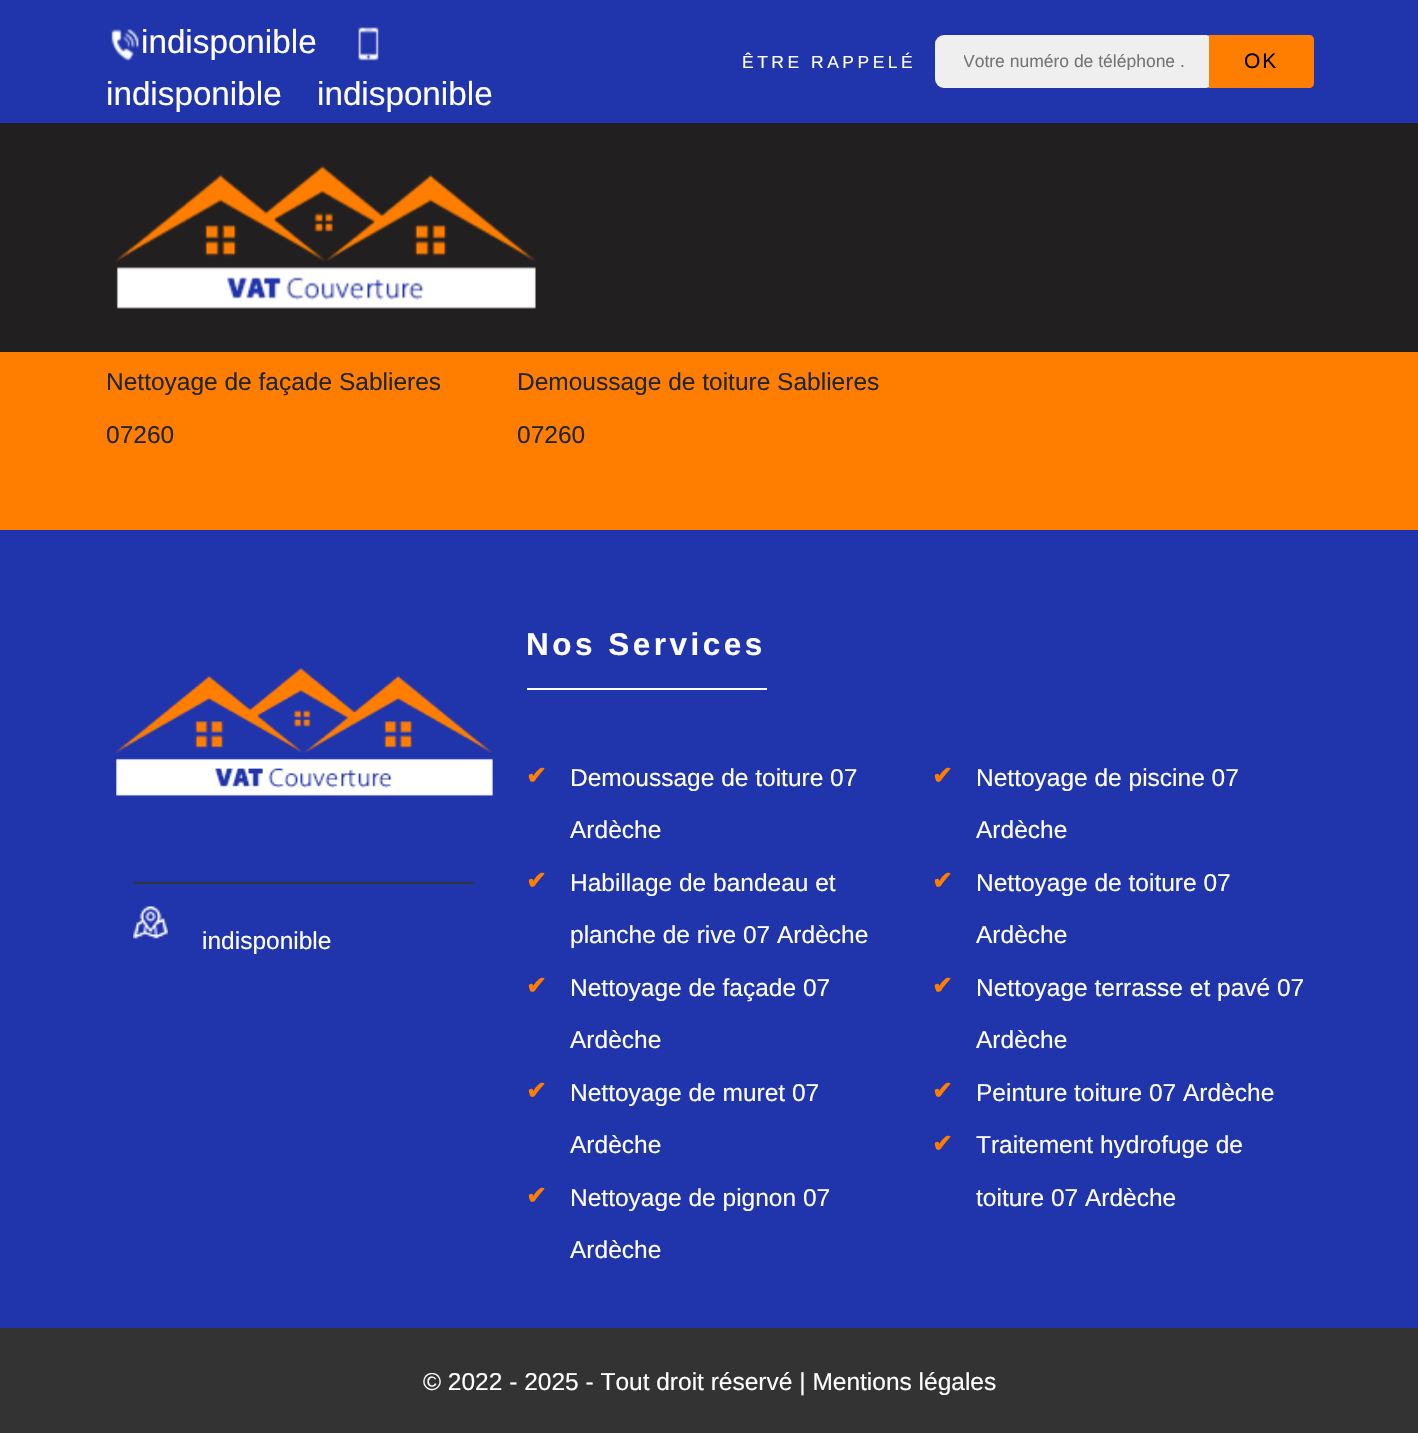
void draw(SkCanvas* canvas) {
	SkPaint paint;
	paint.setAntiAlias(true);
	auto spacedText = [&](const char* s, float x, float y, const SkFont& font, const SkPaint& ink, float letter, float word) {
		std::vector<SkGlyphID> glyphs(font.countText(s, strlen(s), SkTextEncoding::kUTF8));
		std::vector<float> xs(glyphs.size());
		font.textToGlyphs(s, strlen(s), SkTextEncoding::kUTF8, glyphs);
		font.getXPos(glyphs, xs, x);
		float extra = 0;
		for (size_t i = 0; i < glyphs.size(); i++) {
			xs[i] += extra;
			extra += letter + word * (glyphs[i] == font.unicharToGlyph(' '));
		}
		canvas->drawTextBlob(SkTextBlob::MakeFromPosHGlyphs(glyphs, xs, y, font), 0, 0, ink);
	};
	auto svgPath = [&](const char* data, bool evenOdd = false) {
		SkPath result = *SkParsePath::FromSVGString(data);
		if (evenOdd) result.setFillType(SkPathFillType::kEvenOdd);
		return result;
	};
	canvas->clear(0xffff7e00);
	paint.setColor(0xff2034ac);
	canvas->drawRect(SkRect::MakeXYWH(0, 0, 1418, 123), paint);
	canvas->drawImageRect(SkImages::DeferredFromEncodedData(SkData::MakeFromFileName("img1.png")), SkRect::MakeXYWH(111, 29, 28, 32), SkSamplingOptions());
	SkFont f1(fontMgr->matchFamilyStyle("Liberation Sans", SkFontStyle::Normal()), 33.25);
	f1.setSubpixel(true);
	paint.setColor(0xffffffff);
	canvas->drawString("indisponible", 141, 53, f1, paint);
	canvas->drawImageRect(SkImages::DeferredFromEncodedData(SkData::MakeFromFileName("img2.png")), SkRect::MakeXYWH(358, 27, 21, 34), SkSamplingOptions());
	canvas->drawString("indisponible", 106, 105, f1, paint);
	canvas->drawString("indisponible", 317, 105, f1, paint);
	SkFont f2(fontMgr->matchFamilyStyle("Liberation Sans", SkFontStyle::Normal()), 17.5);
	f2.setSubpixel(true);
	spacedText("ÊTRE RAPPELÉ", 742, 68, f2, paint, 3.5, 0);
	paint.setColor(0xffefefef);
	canvas->drawRoundRect(SkRect::MakeXYWH(935, 35, 280, 53), 9, 9, paint);
	canvas->save();
	canvas->clipRect(SkRect::MakeXYWH(964, 51, 221, 19));
	paint.setColor(0xff757575);
	canvas->drawString("Votre numéro de téléphone .", 963, 67, f2, paint);
	canvas->restore();
	paint.setColor(0xffff7e00);
	canvas->drawPath(svgPath("M1209 35H1309C1312 35 1314 37 1314 40V83C1314 86 1312 88 1309 88H1209Z"), paint);
	SkFont f3(fontMgr->matchFamilyStyle("Liberation Sans", SkFontStyle::Normal()), 21);
	f3.setSubpixel(true);
	paint.setColor(0xff000000);
	spacedText("OK", 1244, 68, f3, paint, 2, 0);
	paint.setColor(0xff221f20);
	canvas->drawRect(SkRect::MakeXYWH(0, 123, 1418, 229), paint);
	canvas->drawImageRect(SkImages::DeferredFromEncodedData(SkData::MakeFromFileName("img3.png")), SkRect::MakeXYWH(116, 165, 420, 144), SkSamplingOptions());
	SkFont f4(fontMgr->matchFamilyStyle("Liberation Sans", SkFontStyle::Normal()), 24.5);
	f4.setSubpixel(true);
	paint.setColor(0xff212529);
	canvas->drawString("Nettoyage de façade Sablieres", 106, 390, f4, paint);
	canvas->drawString("07260", 106, 443, f4, paint);
	canvas->drawString("Demoussage de toiture Sablieres", 517, 390, f4, paint);
	canvas->drawString("07260", 517, 443, f4, paint);
	paint.setColor(0xff2034ac);
	canvas->drawRect(SkRect::MakeXYWH(0, 530, 1418, 798), paint);
	canvas->drawImageRect(SkImages::DeferredFromEncodedData(SkData::MakeFromFileName("img4.png")), SkRect::MakeXYWH(115, 667, 378, 129), SkSamplingOptions());
	paint.setColor(0xff2f353c);
	canvas->drawRect(SkRect::MakeXYWH(133, 882, 341, 2), paint);
	canvas->drawImageRect(SkImages::DeferredFromEncodedData(SkData::MakeFromFileName("img5.png")), SkRect::MakeXYWH(133, 906, 35, 33), SkSamplingOptions());
	paint.setColor(0xffffffff);
	canvas->drawString("indisponible", 202, 949, f4, paint);
	canvas->drawRect(SkRect::MakeXYWH(527, 688, 240, 2), paint);
	SkFont f5(fontMgr->matchFamilyStyle("Liberation Sans", SkFontStyle::Bold()), 31.5);
	f5.setSubpixel(true);
	spacedText("Nos Services", 526, 655, f5, paint, 3.5, 0);
	SkFont f6(fontMgr->matchFamilyStyle("DejaVu Sans", SkFontStyle::Bold()), 24.5);
	f6.setSubpixel(true);
	paint.setColor(0xffff7e00);
	canvas->drawString("✔", 526, 784, f6, paint);
	paint.setColor(0xffffffff);
	canvas->drawString("Demoussage de toiture 07", 570, 786, f4, paint);
	canvas->drawString("Ardèche", 570, 838, f4, paint);
	paint.setColor(0xffff7e00);
	canvas->drawString("✔", 932, 784, f6, paint);
	paint.setColor(0xffffffff);
	canvas->drawString("Nettoyage de piscine 07", 976, 786, f4, paint);
	canvas->drawString("Ardèche", 976, 838, f4, paint);
	paint.setColor(0xffff7e00);
	canvas->drawString("✔", 526, 889, f6, paint);
	paint.setColor(0xffffffff);
	canvas->drawString("Habillage de bandeau et", 570, 891, f4, paint);
	canvas->drawString("planche de rive 07 Ardèche", 570, 943, f4, paint);
	paint.setColor(0xffff7e00);
	canvas->drawString("✔", 932, 889, f6, paint);
	paint.setColor(0xffffffff);
	canvas->drawString("Nettoyage de toiture 07", 976, 891, f4, paint);
	canvas->drawString("Ardèche", 976, 943, f4, paint);
	paint.setColor(0xffff7e00);
	canvas->drawString("✔", 526, 994, f6, paint);
	paint.setColor(0xffffffff);
	canvas->drawString("Nettoyage de façade 07", 570, 996, f4, paint);
	canvas->drawString("Ardèche", 570, 1048, f4, paint);
	paint.setColor(0xffff7e00);
	canvas->drawString("✔", 932, 994, f6, paint);
	paint.setColor(0xffffffff);
	canvas->drawString("Nettoyage terrasse et pavé 07", 976, 996, f4, paint);
	canvas->drawString("Ardèche", 976, 1048, f4, paint);
	paint.setColor(0xffff7e00);
	canvas->drawString("✔", 526, 1099, f6, paint);
	paint.setColor(0xffffffff);
	canvas->drawString("Nettoyage de muret 07", 570, 1101, f4, paint);
	canvas->drawString("Ardèche", 570, 1153, f4, paint);
	paint.setColor(0xffff7e00);
	canvas->drawString("✔", 932, 1099, f6, paint);
	paint.setColor(0xffffffff);
	canvas->drawString("Peinture toiture 07 Ardèche", 976, 1101, f4, paint);
	paint.setColor(0xffff7e00);
	canvas->drawString("✔", 932, 1152, f6, paint);
	paint.setColor(0xffffffff);
	canvas->drawString("Traitement hydrofuge de", 976, 1153, f4, paint);
	canvas->drawString("toiture 07 Ardèche", 976, 1206, f4, paint);
	paint.setColor(0xffff7e00);
	canvas->drawString("✔", 526, 1204, f6, paint);
	paint.setColor(0xffffffff);
	canvas->drawString("Nettoyage de pignon 07", 570, 1206, f4, paint);
	canvas->drawString("Ardèche", 570, 1258, f4, paint);
	paint.setColor(0xff333333);
	canvas->drawRect(SkRect::MakeXYWH(0, 1328, 1418, 105), paint);
	paint.setColor(0xffffffff);
	canvas->drawString("© 2022 - 2025 - Tout droit réservé | Mentions légales", 423, 1390, f4, paint);
}
